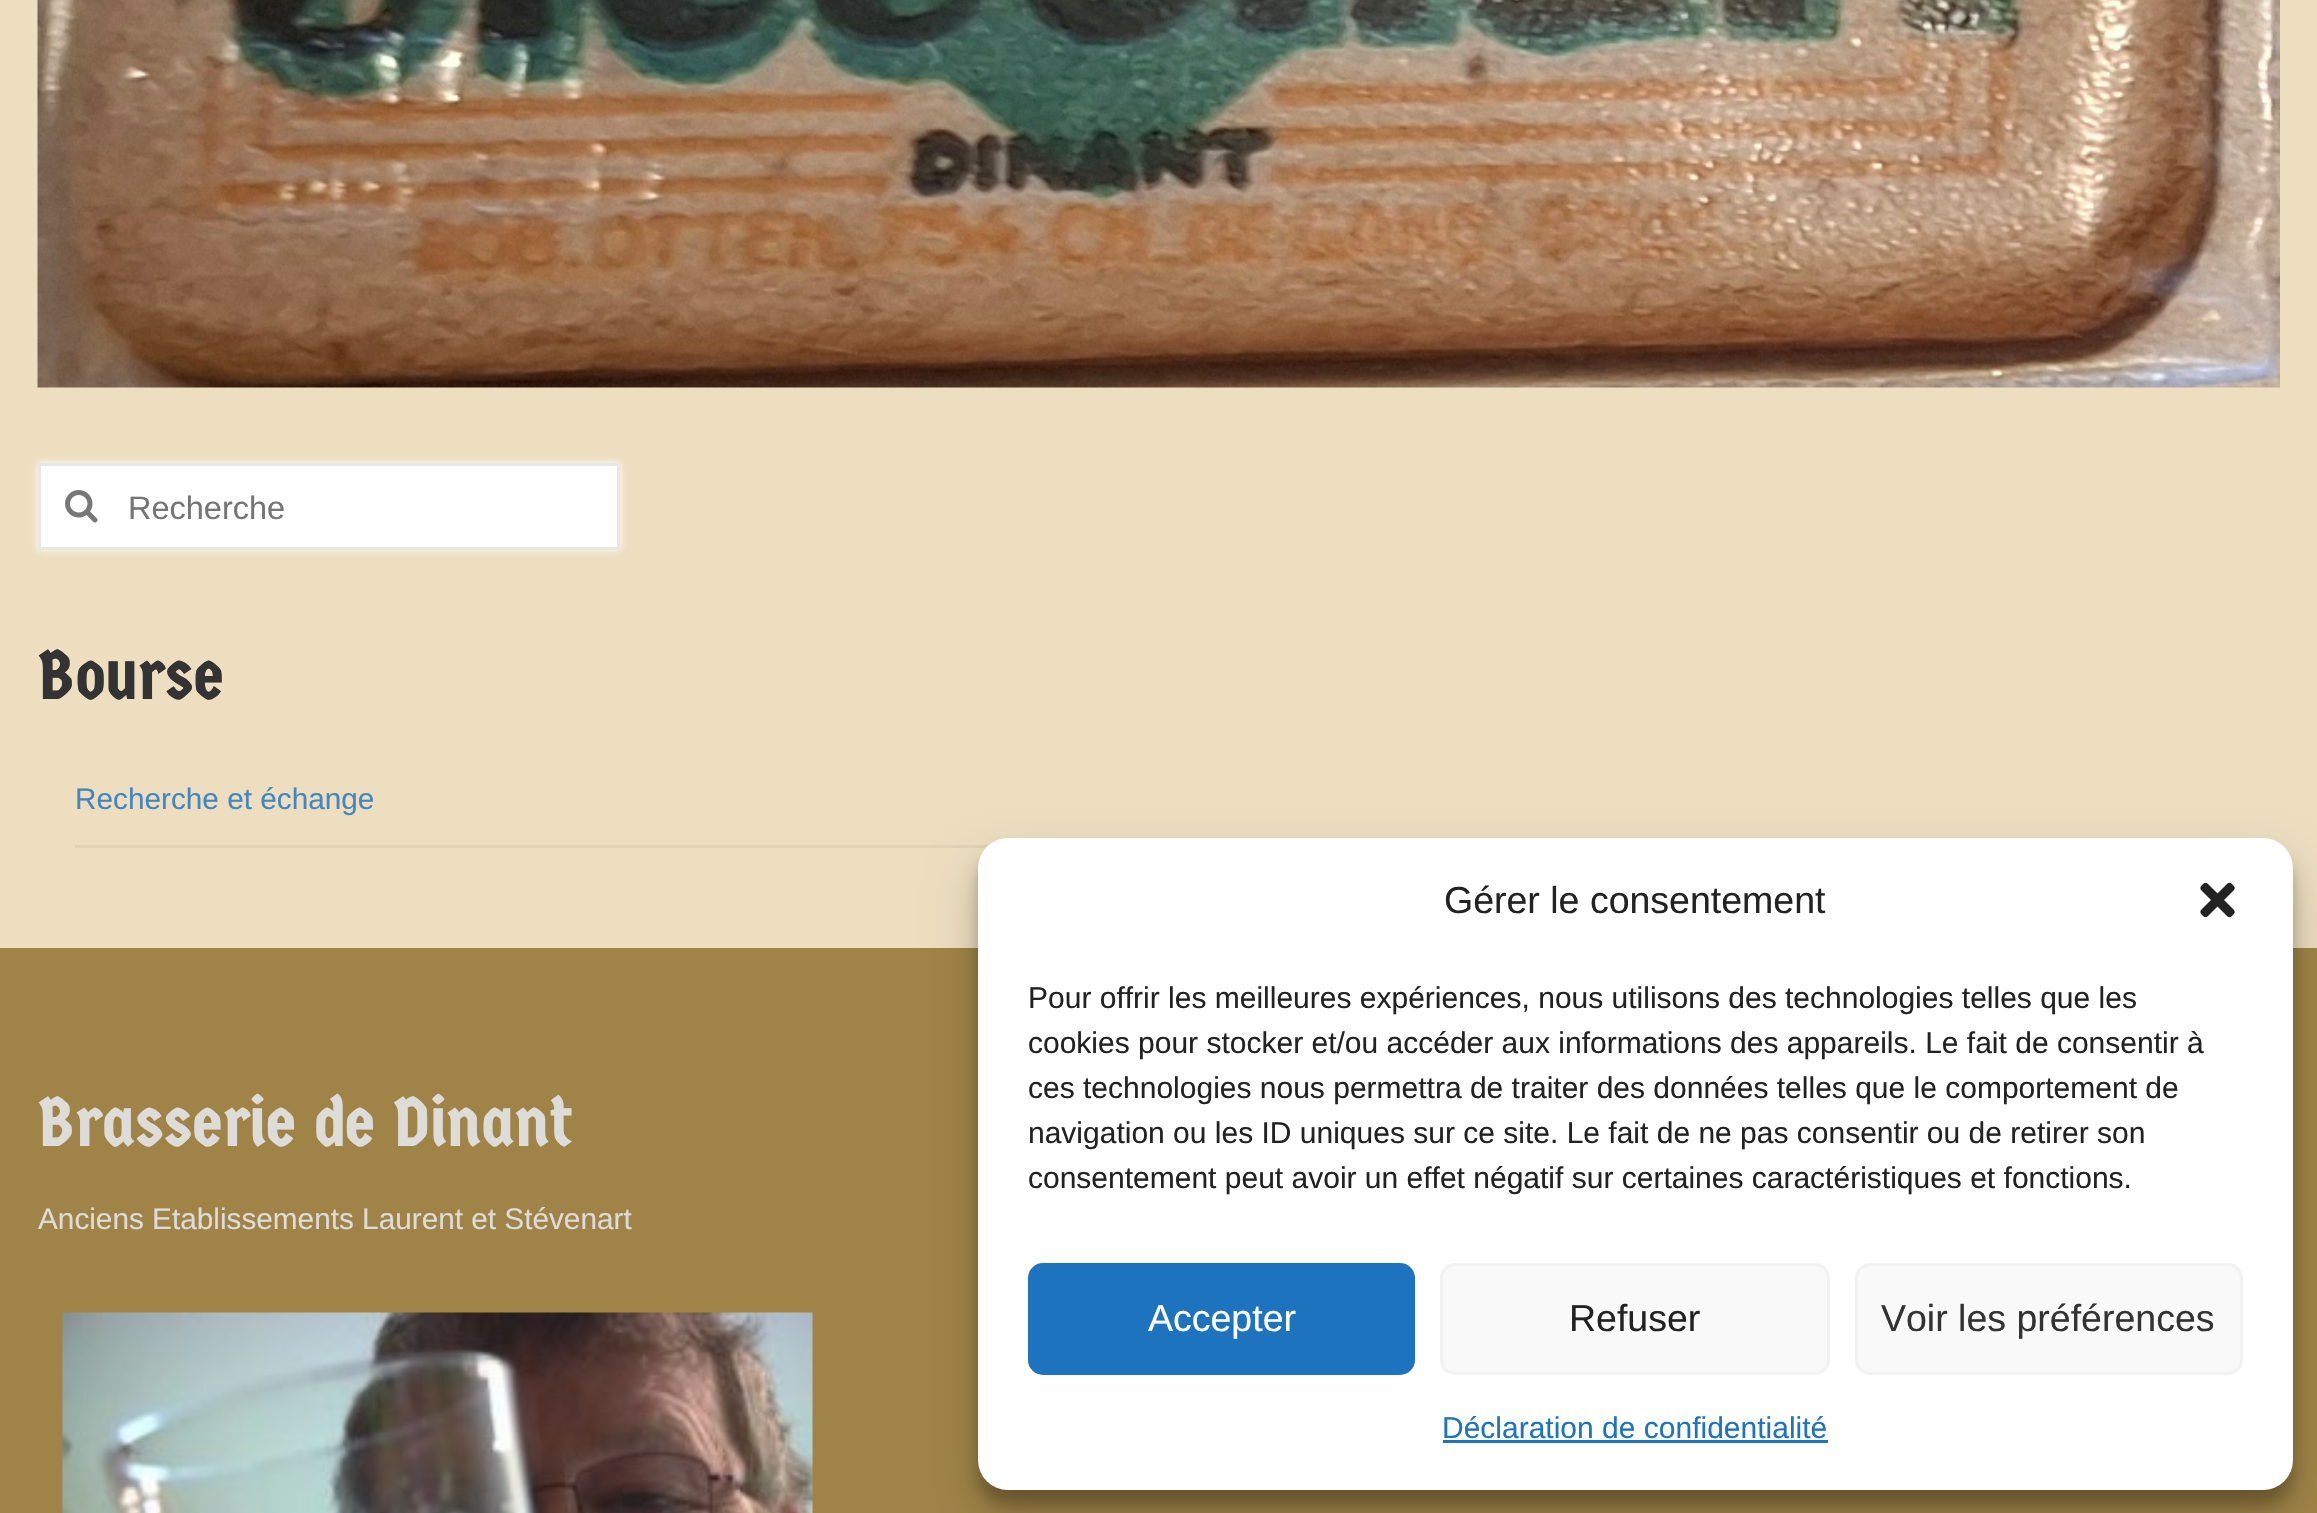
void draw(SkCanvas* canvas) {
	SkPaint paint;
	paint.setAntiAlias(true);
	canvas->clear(0xffa08447);
	paint.setColor(0xffeddec0);
	canvas->drawRect(SkRect::MakeXYWH(0, 0, 2317, 948), paint);
	canvas->drawImageRect(SkImages::DeferredFromEncodedData(SkData::MakeFromFileName("img1.png")), SkRect::MakeXYWH(37, 0, 2243, 388), SkSamplingOptions());
	paint.setColor(0xffffffff);
	paint.setMaskFilter(SkMaskFilter::MakeBlur(kNormal_SkBlurStyle, 4));
	canvas->drawRect(SkRect::MakeXYWH(38, 463, 582, 87), paint);
	paint.setMaskFilter(nullptr);
	canvas->drawRect(SkRect::MakeXYWH(39.5, 464.5, 579, 84), paint);
	paint.setStroke(true);
	paint.setStrokeWidth(3);
	paint.setColor(0xffe7e7e7);
	canvas->drawRect(SkRect::MakeXYWH(39.5, 464.5, 579, 84), paint);
	canvas->drawImageRect(SkImages::DeferredFromEncodedData(SkData::MakeFromFileName("img2.png")), SkRect::MakeXYWH(65, 490, 33, 33), SkSamplingOptions());
	SkFont f1(fontMgr->matchFamilyStyle("Liberation Sans", SkFontStyle::Normal()), 32.5);
	f1.setSubpixel(true);
	paint.setStroke(false);
	paint.setColor(0xff757575);
	canvas->drawString("Recherche", 128, 519, f1, paint);
	SkFont f2(fontMgr->matchFamilyStyle("Germania One", SkFontStyle::Normal()), 70);
	f2.setSubpixel(true);
	paint.setColor(0xff333333);
	canvas->drawString("Bourse", 38, 699, f2, paint);
	paint.setColor(0xffe1d3b6);
	canvas->drawRect(SkRect::MakeXYWH(75, 845, 914, 3), paint);
	SkFont f3(fontMgr->matchFamilyStyle("Liberation Sans", SkFontStyle::Normal()), 29.75);
	f3.setSubpixel(true);
	paint.setColor(0xff4486bf);
	canvas->drawString("Recherche et échange", 75, 809, f3, paint);
	paint.setColor(0xffdddcd9);
	canvas->drawString("Brasserie de Dinant", 38, 1146, f2, paint);
	canvas->drawString("Anciens Etablissements Laurent et Stévenart", 38, 1229, f3, paint);
	canvas->drawImageRect(SkImages::DeferredFromEncodedData(SkData::MakeFromFileName("img3.png")), SkRect::MakeXYWH(62, 1312, 751, 201), SkSamplingOptions());
	paint.setColor(0x3b000000);
	paint.setMaskFilter(SkMaskFilter::MakeBlur(kNormal_SkBlurStyle, 7.5));
	canvas->drawRoundRect(SkRect::MakeXYWH(978, 853, 1315, 652), 30, 30, paint);
	paint.setMaskFilter(nullptr);
	paint.setColor(0x30000000);
	paint.setMaskFilter(SkMaskFilter::MakeBlur(kNormal_SkBlurStyle, 25));
	canvas->drawRoundRect(SkRect::MakeXYWH(978, 863, 1315, 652), 30, 30, paint);
	paint.setMaskFilter(nullptr);
	paint.setColor(0xffffffff);
	canvas->drawRoundRect(SkRect::MakeXYWH(978, 838, 1315, 652), 30, 30, paint);
	SkFont f4(fontMgr->matchFamilyStyle("Liberation Sans", SkFontStyle::Normal()), 37.5);
	f4.setSubpixel(true);
	paint.setColor(0xff222222);
	canvas->drawString("Gérer le consentement", 1444, 913, f4, paint);
	canvas->drawImageRect(SkImages::DeferredFromEncodedData(SkData::MakeFromFileName("img4.png")), SkRect::MakeXYWH(2200, 882, 35, 36), SkSamplingOptions());
	SkFont f5(fontMgr->matchFamilyStyle("Liberation Sans", SkFontStyle::Normal()), 30);
	f5.setSubpixel(true);
	canvas->drawString("Pour offrir les meilleures expériences, nous utilisons des technologies telles que les", 1028, 1008, f5, paint);
	canvas->drawString("cookies pour stocker et/ou accéder aux informations des appareils. Le fait de consentir à", 1028, 1053, f5, paint);
	canvas->drawString("ces technologies nous permettra de traiter des données telles que le comportement de", 1028, 1098, f5, paint);
	canvas->drawString("navigation ou les ID uniques sur ce site. Le fait de ne pas consentir ou de retirer son", 1028, 1143, f5, paint);
	canvas->drawString("consentement peut avoir un effet négatif sur certaines caractéristiques et fonctions.", 1028, 1188, f5, paint);
	paint.setColor(0xff1e73be);
	canvas->drawRoundRect(SkRect::MakeXYWH(1029.5, 1264.5, 384, 109), 13.5, 13.5, paint);
	paint.setStroke(true);
	canvas->drawRoundRect(SkRect::MakeXYWH(1029.5, 1264.5, 384, 109), 13.5, 13.5, paint);
	paint.setStroke(false);
	paint.setColor(0xffffffff);
	canvas->drawString("Accepter", 1148, 1331, f4, paint);
	paint.setColor(0xfff9f9f9);
	canvas->drawRoundRect(SkRect::MakeXYWH(1441.5, 1264.5, 387, 109), 13.5, 13.5, paint);
	paint.setStroke(true);
	paint.setColor(0xfff2f2f2);
	canvas->drawRoundRect(SkRect::MakeXYWH(1441.5, 1264.5, 387, 109), 13.5, 13.5, paint);
	paint.setStroke(false);
	paint.setColor(0xff222222);
	canvas->drawString("Refuser", 1569, 1331, f4, paint);
	paint.setColor(0xfff9f9f9);
	canvas->drawRoundRect(SkRect::MakeXYWH(1856.5, 1264.5, 385, 109), 13.5, 13.5, paint);
	paint.setStroke(true);
	paint.setColor(0xfff2f2f2);
	canvas->drawRoundRect(SkRect::MakeXYWH(1856.5, 1264.5, 385, 109), 13.5, 13.5, paint);
	paint.setStroke(false);
	paint.setColor(0xff333333);
	canvas->drawString("Voir les préférences", 1881, 1331, f4, paint);
	paint.setColor(0xff1e73be);
	canvas->drawString("Déclaration de confidentialité", 1442, 1438, f5, paint);
	canvas->drawRect(SkRect::MakeXYWH(1443, 1440, 385, 3), paint);
}
